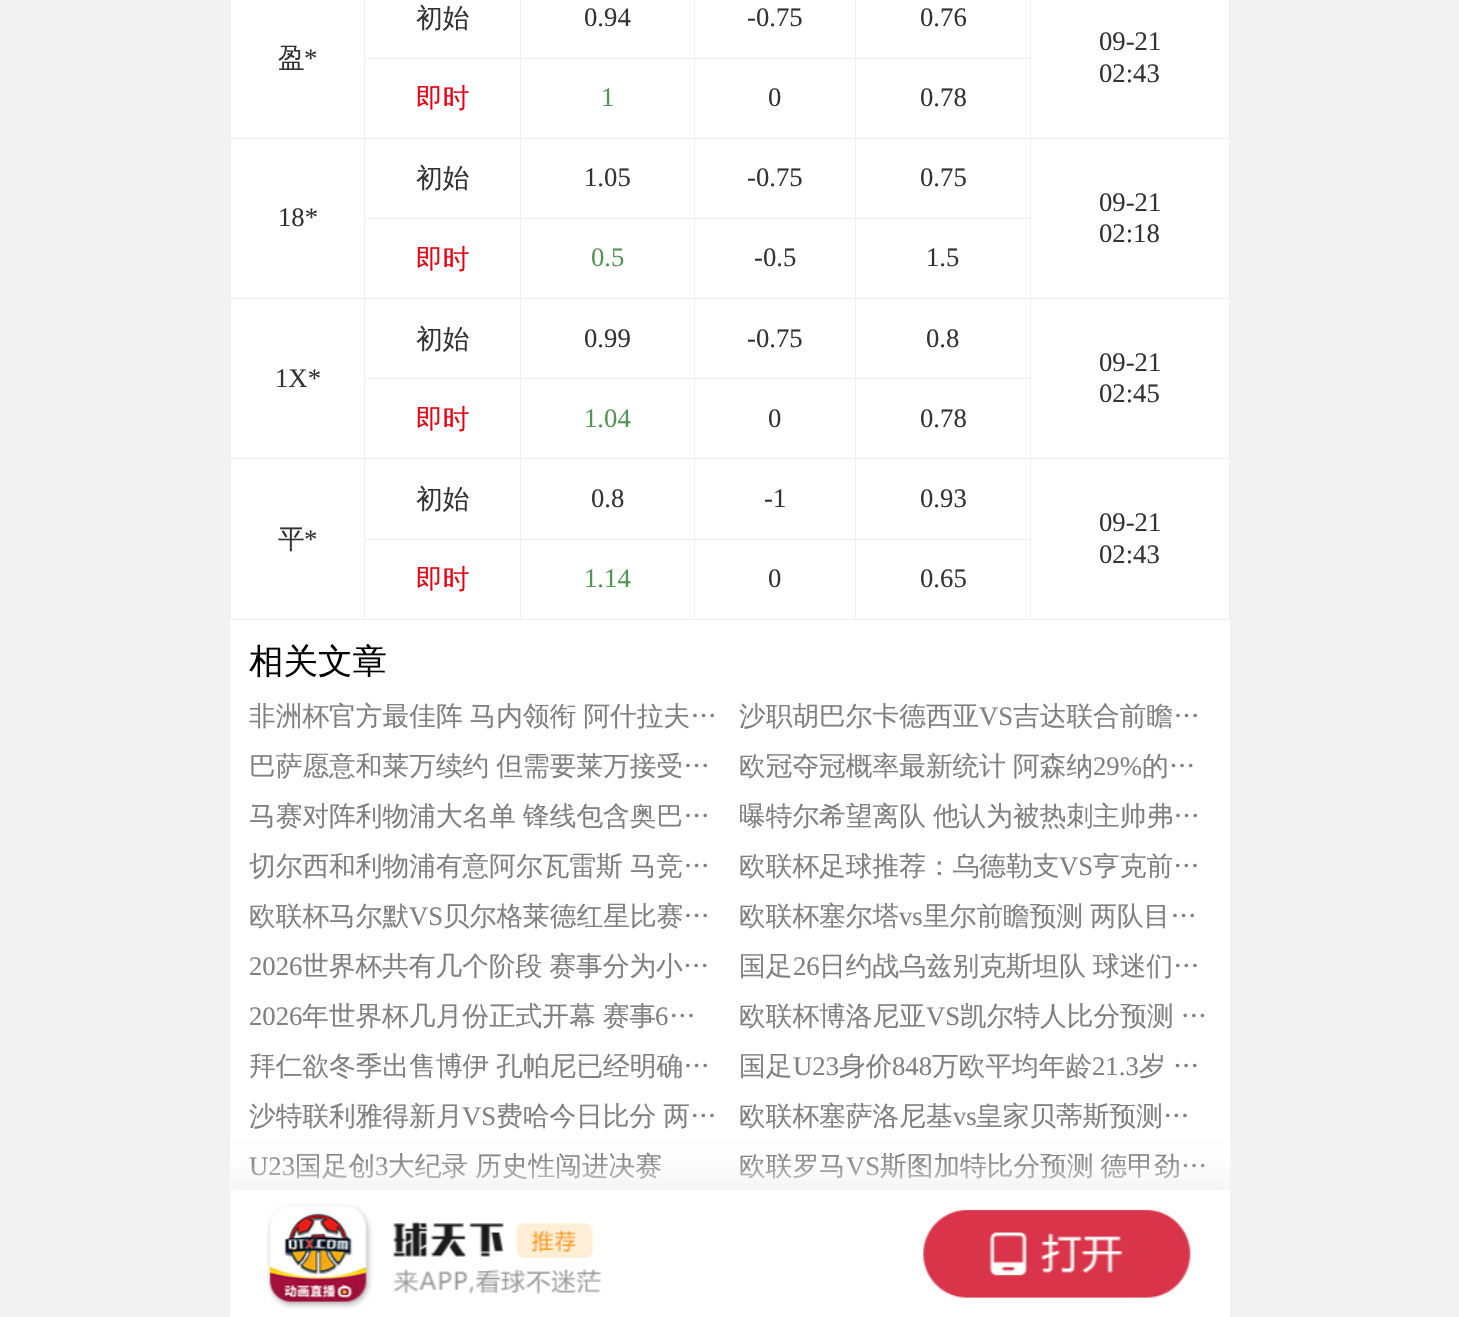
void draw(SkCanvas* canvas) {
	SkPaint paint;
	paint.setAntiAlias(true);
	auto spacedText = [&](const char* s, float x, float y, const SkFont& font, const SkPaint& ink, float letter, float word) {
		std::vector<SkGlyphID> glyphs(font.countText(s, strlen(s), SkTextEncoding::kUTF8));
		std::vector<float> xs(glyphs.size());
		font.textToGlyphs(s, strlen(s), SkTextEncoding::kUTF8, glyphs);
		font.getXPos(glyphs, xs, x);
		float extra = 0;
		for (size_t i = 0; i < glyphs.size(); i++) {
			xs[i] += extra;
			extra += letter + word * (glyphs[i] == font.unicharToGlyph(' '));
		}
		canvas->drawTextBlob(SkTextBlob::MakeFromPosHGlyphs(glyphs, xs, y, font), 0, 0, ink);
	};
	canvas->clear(0xfff2f2f2);
	paint.setColor(0xffffffff);
	canvas->drawRect(SkRect::MakeXYWH(231, 0, 998, 619), paint);
	SkFont f1(fontMgr->matchFamilyStyle("WenQuanYi Zen Hei", SkFontStyle(500, SkFontStyle::kNormal_Width, SkFontStyle::kUpright_Slant)), 26.7);
	f1.setSubpixel(true);
	paint.setColor(0xff333333);
	canvas->drawString("初始", 416, 27, f1, paint);
	paint.setColor(0xffefefef);
	canvas->drawRect(SkRect::MakeXYWH(855, 58, 176, 1), paint);
	canvas->drawRect(SkRect::MakeXYWH(1030, 138, 200, 1), paint);
	canvas->drawRect(SkRect::MakeXYWH(855, 218, 176, 1), paint);
	canvas->drawRect(SkRect::MakeXYWH(1030, 298, 200, 1), paint);
	canvas->drawRect(SkRect::MakeXYWH(855, 378, 176, 1), paint);
	canvas->drawRect(SkRect::MakeXYWH(1030, 458, 200, 1), paint);
	canvas->drawRect(SkRect::MakeXYWH(1229, 458, 1, 162), paint);
	canvas->drawRect(SkRect::MakeXYWH(855, 619, 176, 1), paint);
	canvas->drawRect(SkRect::MakeXYWH(1030, 619, 200, 1), paint);
	canvas->drawRect(SkRect::MakeXYWH(855, 539, 176, 1), paint);
	canvas->drawRect(SkRect::MakeXYWH(1030, 458, 1, 162), paint);
	canvas->drawRect(SkRect::MakeXYWH(855, 458, 176, 1), paint);
	canvas->drawRect(SkRect::MakeXYWH(1030, 298, 1, 161), paint);
	canvas->drawRect(SkRect::MakeXYWH(855, 298, 176, 1), paint);
	canvas->drawRect(SkRect::MakeXYWH(1030, 138, 1, 161), paint);
	canvas->drawRect(SkRect::MakeXYWH(855, 138, 176, 1), paint);
	canvas->drawRect(SkRect::MakeXYWH(855, 539, 1, 81), paint);
	canvas->drawRect(SkRect::MakeXYWH(694, 539, 162, 1), paint);
	canvas->drawRect(SkRect::MakeXYWH(855, 458, 1, 82), paint);
	canvas->drawRect(SkRect::MakeXYWH(694, 458, 162, 1), paint);
	canvas->drawRect(SkRect::MakeXYWH(855, 378, 1, 81), paint);
	canvas->drawRect(SkRect::MakeXYWH(694, 378, 162, 1), paint);
	canvas->drawRect(SkRect::MakeXYWH(855, 298, 1, 81), paint);
	canvas->drawRect(SkRect::MakeXYWH(694, 298, 162, 1), paint);
	canvas->drawRect(SkRect::MakeXYWH(855, 218, 1, 81), paint);
	canvas->drawRect(SkRect::MakeXYWH(694, 218, 162, 1), paint);
	canvas->drawRect(SkRect::MakeXYWH(855, 138, 1, 81), paint);
	canvas->drawRect(SkRect::MakeXYWH(694, 138, 162, 1), paint);
	canvas->drawRect(SkRect::MakeXYWH(855, 58, 1, 81), paint);
	canvas->drawRect(SkRect::MakeXYWH(694, 58, 162, 1), paint);
	canvas->drawRect(SkRect::MakeXYWH(694, 619, 162, 1), paint);
	canvas->drawRect(SkRect::MakeXYWH(694, 539, 1, 81), paint);
	canvas->drawRect(SkRect::MakeXYWH(520, 539, 175, 1), paint);
	canvas->drawRect(SkRect::MakeXYWH(694, 458, 1, 82), paint);
	canvas->drawRect(SkRect::MakeXYWH(520, 458, 175, 1), paint);
	canvas->drawRect(SkRect::MakeXYWH(694, 378, 1, 81), paint);
	canvas->drawRect(SkRect::MakeXYWH(520, 378, 175, 1), paint);
	canvas->drawRect(SkRect::MakeXYWH(694, 298, 1, 81), paint);
	canvas->drawRect(SkRect::MakeXYWH(520, 298, 175, 1), paint);
	canvas->drawRect(SkRect::MakeXYWH(694, 218, 1, 81), paint);
	canvas->drawRect(SkRect::MakeXYWH(520, 218, 175, 1), paint);
	canvas->drawRect(SkRect::MakeXYWH(694, 138, 1, 81), paint);
	canvas->drawRect(SkRect::MakeXYWH(520, 138, 175, 1), paint);
	canvas->drawRect(SkRect::MakeXYWH(694, 58, 1, 81), paint);
	canvas->drawRect(SkRect::MakeXYWH(520, 58, 175, 1), paint);
	canvas->drawRect(SkRect::MakeXYWH(520, 619, 175, 1), paint);
	canvas->drawRect(SkRect::MakeXYWH(520, 539, 1, 81), paint);
	canvas->drawRect(SkRect::MakeXYWH(364, 539, 157, 1), paint);
	canvas->drawRect(SkRect::MakeXYWH(520, 458, 1, 82), paint);
	canvas->drawRect(SkRect::MakeXYWH(364, 458, 157, 1), paint);
	canvas->drawRect(SkRect::MakeXYWH(520, 378, 1, 81), paint);
	canvas->drawRect(SkRect::MakeXYWH(364, 378, 157, 1), paint);
	canvas->drawRect(SkRect::MakeXYWH(520, 298, 1, 81), paint);
	canvas->drawRect(SkRect::MakeXYWH(364, 298, 157, 1), paint);
	canvas->drawRect(SkRect::MakeXYWH(520, 218, 1, 81), paint);
	canvas->drawRect(SkRect::MakeXYWH(364, 218, 157, 1), paint);
	canvas->drawRect(SkRect::MakeXYWH(520, 138, 1, 81), paint);
	canvas->drawRect(SkRect::MakeXYWH(364, 138, 157, 1), paint);
	canvas->drawRect(SkRect::MakeXYWH(520, 58, 1, 81), paint);
	canvas->drawRect(SkRect::MakeXYWH(364, 58, 157, 1), paint);
	canvas->drawRect(SkRect::MakeXYWH(520, 0, 1, 59), paint);
	SkFont f2(fontMgr->matchFamilyStyle("Liberation Serif", SkFontStyle::Normal()), 26.7);
	f2.setSubpixel(true);
	paint.setColor(0xff333333);
	canvas->drawString("0.94", 584, 26, f2, paint);
	paint.setColor(0xffefefef);
	canvas->drawRect(SkRect::MakeXYWH(694, 0, 1, 59), paint);
	paint.setColor(0xff333333);
	canvas->drawString("-0.75", 747, 26, f2, paint);
	paint.setColor(0xffefefef);
	canvas->drawRect(SkRect::MakeXYWH(855, 0, 1, 59), paint);
	paint.setColor(0xff333333);
	canvas->drawString("0.76", 920, 26, f2, paint);
	canvas->drawString("盈", 278, 67, f1, paint);
	canvas->drawString("*", 304, 67, f2, paint);
	paint.setColor(0xffefefef);
	canvas->drawRect(SkRect::MakeXYWH(1030, 0, 1, 139), paint);
	paint.setColor(0xff333333);
	canvas->drawString("09-21", 1099, 50, f2, paint);
	canvas->drawString("02:43", 1099, 82, f2, paint);
	paint.setColor(0xffefefef);
	canvas->drawRect(SkRect::MakeXYWH(364, 619, 157, 1), paint);
	canvas->drawRect(SkRect::MakeXYWH(364, 539, 1, 81), paint);
	canvas->drawRect(SkRect::MakeXYWH(364, 458, 1, 82), paint);
	canvas->drawRect(SkRect::MakeXYWH(230, 458, 135, 1), paint);
	canvas->drawRect(SkRect::MakeXYWH(364, 378, 1, 81), paint);
	canvas->drawRect(SkRect::MakeXYWH(364, 298, 1, 81), paint);
	canvas->drawRect(SkRect::MakeXYWH(230, 298, 135, 1), paint);
	canvas->drawRect(SkRect::MakeXYWH(364, 218, 1, 81), paint);
	canvas->drawRect(SkRect::MakeXYWH(364, 138, 1, 81), paint);
	canvas->drawRect(SkRect::MakeXYWH(230, 138, 135, 1), paint);
	canvas->drawRect(SkRect::MakeXYWH(364, 0, 1, 139), paint);
	paint.setColor(0xffe60012);
	canvas->drawString("即时", 416, 107, f1, paint);
	paint.setColor(0xff549553);
	canvas->drawString("1", 601, 106, f2, paint);
	paint.setColor(0xff333333);
	canvas->drawString("0", 768, 106, f2, paint);
	canvas->drawString("0.78", 920, 106, f2, paint);
	canvas->drawString("初始", 416, 187, f1, paint);
	canvas->drawString("1.05", 584, 186, f2, paint);
	canvas->drawString("-0.75", 747, 186, f2, paint);
	canvas->drawString("0.75", 920, 186, f2, paint);
	paint.setColor(0xffefefef);
	canvas->drawRect(SkRect::MakeXYWH(230, 619, 135, 1), paint);
	canvas->drawRect(SkRect::MakeXYWH(230, 458, 1, 162), paint);
	canvas->drawRect(SkRect::MakeXYWH(230, 298, 1, 161), paint);
	canvas->drawRect(SkRect::MakeXYWH(230, 0, 1, 299), paint);
	paint.setColor(0xff333333);
	canvas->drawString("18*", 278, 226, f2, paint);
	paint.setColor(0xffefefef);
	canvas->drawRect(SkRect::MakeXYWH(1229, 298, 1, 161), paint);
	canvas->drawRect(SkRect::MakeXYWH(1229, 0, 1, 299), paint);
	paint.setColor(0xff333333);
	canvas->drawString("09-21", 1099, 211, f2, paint);
	canvas->drawString("02:18", 1099, 242, f2, paint);
	paint.setColor(0xffe60012);
	canvas->drawString("即时", 416, 268, f1, paint);
	paint.setColor(0xff549553);
	canvas->drawString("0.5", 591, 266, f2, paint);
	paint.setColor(0xff333333);
	canvas->drawString("-0.5", 754, 266, f2, paint);
	canvas->drawString("1.5", 926, 266, f2, paint);
	canvas->drawString("初始", 416, 348, f1, paint);
	canvas->drawString("0.99", 584, 347, f2, paint);
	canvas->drawString("-0.75", 747, 347, f2, paint);
	canvas->drawString("0.8", 926, 347, f2, paint);
	canvas->drawString("1X*", 275, 387, f2, paint);
	canvas->drawString("09-21", 1099, 371, f2, paint);
	canvas->drawString("02:45", 1099, 402, f2, paint);
	paint.setColor(0xffe60012);
	canvas->drawString("即时", 416, 428, f1, paint);
	paint.setColor(0xff549553);
	canvas->drawString("1.04", 584, 427, f2, paint);
	paint.setColor(0xff333333);
	canvas->drawString("0", 768, 427, f2, paint);
	canvas->drawString("0.78", 920, 427, f2, paint);
	canvas->drawString("初始", 416, 508, f1, paint);
	canvas->drawString("0.8", 591, 507, f2, paint);
	canvas->drawString("-1", 764, 507, f2, paint);
	canvas->drawString("0.93", 920, 507, f2, paint);
	canvas->drawString("平", 278, 548, f1, paint);
	canvas->drawString("*", 304, 548, f2, paint);
	canvas->drawString("09-21", 1099, 531, f2, paint);
	canvas->drawString("02:43", 1099, 563, f2, paint);
	paint.setColor(0xffe60012);
	canvas->drawString("即时", 416, 588, f1, paint);
	paint.setColor(0xff549553);
	canvas->drawString("1.14", 584, 587, f2, paint);
	paint.setColor(0xff333333);
	canvas->drawString("0", 768, 587, f2, paint);
	canvas->drawString("0.65", 920, 587, f2, paint);
	paint.setColor(0xffffffff);
	canvas->drawRect(SkRect::MakeXYWH(230, 620, 1000, 697), paint);
	SkFont f3(fontMgr->matchFamilyStyle("WenQuanYi Zen Hei", SkFontStyle(500, SkFontStyle::kNormal_Width, SkFontStyle::kUpright_Slant)), 34.5);
	f3.setSubpixel(true);
	paint.setColor(0xff000000);
	canvas->drawString("相关文章", 249, 673, f3, paint);
	paint.setColor(0xff808080);
	spacedText("非洲杯官方最佳阵 马内领衔 阿什拉夫…", 249, 725, f1, paint, 0, -1);
	canvas->drawString("沙职胡巴尔卡德西亚", 739, 725, f1, paint);
	canvas->drawString("VS", 979, 725, f2, paint);
	spacedText("吉达联合前瞻…", 1013, 725, f1, paint, 0, -1);
	spacedText("巴萨愿意和莱万续约 但需要莱万接受…", 249, 775, f1, paint, 0, -1);
	spacedText("欧冠夺冠概率最新统计 阿森纳", 739, 775, f1, paint, 0, -1);
	canvas->drawString("29%", 1093, 775, f2, paint);
	canvas->drawString("的…", 1142, 775, f1, paint);
	spacedText("马赛对阵利物浦大名单 锋线包含奥巴…", 249, 825, f1, paint, 0, -1);
	spacedText("曝特尔希望离队 他认为被热刺主帅弗…", 739, 825, f1, paint, 0, -1);
	spacedText("切尔西和利物浦有意阿尔瓦雷斯 马竞…", 249, 875, f1, paint, 0, -1);
	canvas->drawString("欧联杯足球推荐：乌德勒支", 739, 875, f1, paint);
	canvas->drawString("VS", 1059, 875, f2, paint);
	spacedText("亨克前…", 1093, 875, f1, paint, 0, -1);
	canvas->drawString("欧联杯马尔默", 249, 925, f1, paint);
	canvas->drawString("VS", 409, 925, f2, paint);
	spacedText("贝尔格莱德红星比赛…", 443, 925, f1, paint, 0, -1);
	canvas->drawString("欧联杯塞尔塔", 739, 925, f1, paint);
	canvas->drawString("vs", 899, 925, f2, paint);
	spacedText("里尔前瞻预测 两队目…", 923, 925, f1, paint, 0, -1);
	canvas->drawString("2026", 249, 975, f2, paint);
	spacedText("世界杯共有几个阶段 赛事分为小…", 302, 975, f1, paint, 0, -1);
	canvas->drawString("国足", 739, 975, f1, paint);
	canvas->drawString("26", 793, 975, f2, paint);
	spacedText("日约战乌兹别克斯坦队 球迷们…", 819, 975, f1, paint, 0, -1);
	canvas->drawString("2026", 249, 1025, f2, paint);
	spacedText("年世界杯几月份正式开幕 赛事", 302, 1025, f1, paint, 0, -1);
	canvas->drawString("6", 655, 1025, f2, paint);
	canvas->drawString("…", 669, 1025, f1, paint);
	canvas->drawString("欧联杯博洛尼亚", 739, 1025, f1, paint);
	canvas->drawString("VS", 926, 1025, f2, paint);
	spacedText("凯尔特人比分预测 …", 960, 1025, f1, paint, 0, -1);
	spacedText("拜仁欲冬季出售博伊 孔帕尼已经明确…", 249, 1075, f1, paint, 0, -1);
	canvas->drawString("国足", 739, 1075, f1, paint);
	canvas->drawString("U23", 793, 1075, f2, paint);
	canvas->drawString("身价", 839, 1075, f1, paint);
	canvas->drawString("848", 892, 1075, f2, paint);
	canvas->drawString("万欧平均年龄", 932, 1075, f1, paint);
	canvas->drawString("21.3", 1092, 1075, f2, paint);
	spacedText("岁 …", 1139, 1075, f1, paint, 0, -1);
	canvas->drawString("沙特联利雅得新月", 249, 1125, f1, paint);
	canvas->drawString("VS", 462, 1125, f2, paint);
	spacedText("费哈今日比分 两…", 496, 1125, f1, paint, 0, -1);
	canvas->drawString("欧联杯塞萨洛尼基", 739, 1125, f1, paint);
	canvas->drawString("vs", 953, 1125, f2, paint);
	spacedText("皇家贝蒂斯预测…", 976, 1125, f1, paint, 0, -1);
	canvas->drawString("U23", 249, 1175, f2, paint);
	canvas->drawString("国足创", 295, 1175, f1, paint);
	canvas->drawString("3", 375, 1175, f2, paint);
	spacedText("大纪录 历史性闯进决赛", 388, 1175, f1, paint, 0, -1);
	canvas->drawString("欧联罗马", 739, 1175, f1, paint);
	canvas->drawString("VS", 846, 1175, f2, paint);
	spacedText("斯图加特比分预测 德甲劲…", 880, 1175, f1, paint, 0, -1);
	paint.setColor(0xfff2f2f2);
	paint.setMaskFilter(SkMaskFilter::MakeBlur(kNormal_SkBlurStyle, 13.5));
	canvas->drawRect(SkRect::MakeXYWH(219, 1179, 1022, 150), paint);
	paint.setMaskFilter(nullptr);
	canvas->drawImageRect(SkImages::DeferredFromEncodedData(SkData::MakeFromFileName("img1.png")), SkRect::MakeXYWH(230, 1190, 1000, 127), SkSamplingOptions());
}
